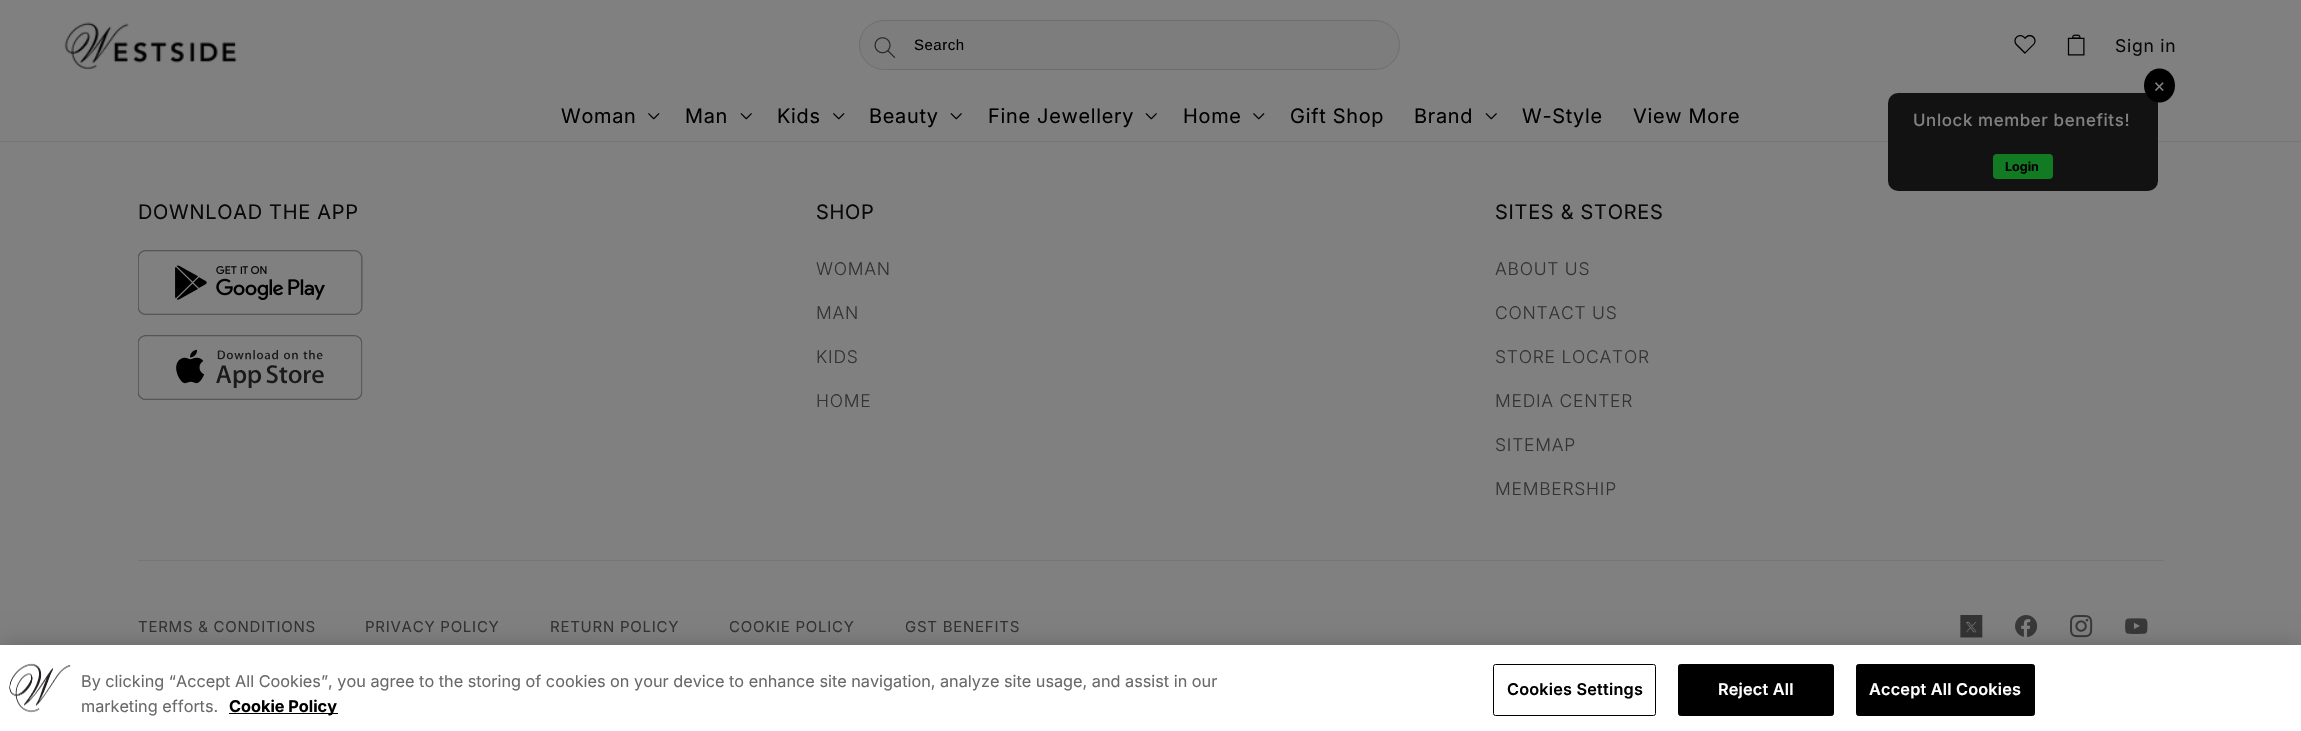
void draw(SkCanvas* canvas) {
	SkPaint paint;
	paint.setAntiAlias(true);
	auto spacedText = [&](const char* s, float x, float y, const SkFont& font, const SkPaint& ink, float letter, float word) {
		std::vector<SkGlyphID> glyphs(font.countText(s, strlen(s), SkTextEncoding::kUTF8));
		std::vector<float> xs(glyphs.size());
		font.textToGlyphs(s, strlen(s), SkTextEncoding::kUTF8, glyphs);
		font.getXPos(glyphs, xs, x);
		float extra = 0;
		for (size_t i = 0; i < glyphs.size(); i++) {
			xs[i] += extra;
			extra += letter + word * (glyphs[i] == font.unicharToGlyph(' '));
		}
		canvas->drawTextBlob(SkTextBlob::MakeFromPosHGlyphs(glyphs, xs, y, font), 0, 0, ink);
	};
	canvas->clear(0xff808080);
	paint.setColor(0xff767676);
	canvas->drawRect(SkRect::MakeXYWH(0, 141, 2301, 1), paint);
	canvas->drawImageRect(SkImages::DeferredFromEncodedData(SkData::MakeFromFileName("img1.png")), SkRect::MakeXYWH(64, 22, 173, 48), SkSamplingOptions());
	paint.setColor(0xff7d7d7d);
	canvas->drawRoundRect(SkRect::MakeXYWH(859, 20, 541, 50), 25, 25, paint);
	canvas->drawImageRect(SkImages::DeferredFromEncodedData(SkData::MakeFromFileName("img2.png")), SkRect::MakeXYWH(874, 37, 22, 21), SkSamplingOptions());
	paint.setStroke(true);
	paint.setStrokeWidth(1);
	paint.setColor(0xff6e6e6e);
	canvas->drawRoundRect(SkRect::MakeXYWH(859.5, 20.5, 540, 49), 24.5, 24.5, paint);
	SkFont f1(fontMgr->matchFamilyStyle("Liberation Sans", SkFontStyle::Normal()), 15);
	f1.setSubpixel(true);
	paint.setStroke(false);
	paint.setColor(0xff000000);
	spacedText("Search", 914, 50, f1, paint, 0.5, 0);
	canvas->drawImageRect(SkImages::DeferredFromEncodedData(SkData::MakeFromFileName("img3.png")), SkRect::MakeXYWH(2014, 34, 22, 20), SkSamplingOptions());
	canvas->drawImageRect(SkImages::DeferredFromEncodedData(SkData::MakeFromFileName("img4.png")), SkRect::MakeXYWH(2067, 34, 18, 22), SkSamplingOptions());
	SkFont f2(fontMgr->matchFamilyStyle("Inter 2", SkFontStyle::Normal()), 17.5);
	f2.setSubpixel(true);
	paint.setColor(0xff090909);
	spacedText("Sign in", 2115, 52, f2, paint, 0.75, 0);
	SkFont f3(fontMgr->matchFamilyStyle("Inter", SkFontStyle::Normal()), 20);
	f3.setSubpixel(true);
	paint.setColor(0xff000000);
	spacedText("Woman", 561, 123, f3, paint, 0.75, 0);
	canvas->drawImageRect(SkImages::DeferredFromEncodedData(SkData::MakeFromFileName("img5.png")), SkRect::MakeXYWH(648, 113, 12, 7), SkSamplingOptions());
	spacedText("Man", 685, 123, f3, paint, 0.75, 0);
	canvas->drawImageRect(SkImages::DeferredFromEncodedData(SkData::MakeFromFileName("img6.png")), SkRect::MakeXYWH(740, 113, 12, 7), SkSamplingOptions());
	spacedText("Kids", 777, 123, f3, paint, 0.75, 0);
	canvas->drawImageRect(SkImages::DeferredFromEncodedData(SkData::MakeFromFileName("img5.png")), SkRect::MakeXYWH(833, 113, 12, 7), SkSamplingOptions());
	spacedText("Beauty", 869, 123, f3, paint, 0.75, 0);
	canvas->drawImageRect(SkImages::DeferredFromEncodedData(SkData::MakeFromFileName("img6.png")), SkRect::MakeXYWH(950, 113, 12, 7), SkSamplingOptions());
	spacedText("Fine Jewellery", 988, 123, f3, paint, 0.75, 0);
	canvas->drawImageRect(SkImages::DeferredFromEncodedData(SkData::MakeFromFileName("img6.png")), SkRect::MakeXYWH(1145, 113, 12, 7), SkSamplingOptions());
	spacedText("Home", 1183, 123, f3, paint, 0.75, 0);
	canvas->drawImageRect(SkImages::DeferredFromEncodedData(SkData::MakeFromFileName("img5.png")), SkRect::MakeXYWH(1253, 113, 12, 7), SkSamplingOptions());
	spacedText("Gift Shop", 1290, 123, f3, paint, 0.75, 0);
	spacedText("Brand", 1414, 123, f3, paint, 0.75, 0);
	canvas->drawImageRect(SkImages::DeferredFromEncodedData(SkData::MakeFromFileName("img6.png")), SkRect::MakeXYWH(1485, 113, 12, 7), SkSamplingOptions());
	spacedText("W-Style", 1522, 123, f3, paint, 0.75, 0);
	spacedText("View More", 1633, 123, f3, paint, 0.75, 0);
	paint.setColor(0xeb0a0909);
	canvas->drawRoundRect(SkRect::MakeXYWH(1888, 93, 270, 98), 10, 10, paint);
	paint.setColor(0xff000000);
	canvas->drawOval(SkRect::MakeXYWH(2144, 68.5, 31, 34), paint);
	SkFont f4(fontMgr->matchFamilyStyle("Inter 2", SkFontStyle::Normal()), 19);
	f4.setSubpixel(true);
	paint.setColor(0xff808080);
	spacedText("×", 2153, 92, f4, paint, 0.75, 0);
	SkFont f5(fontMgr->matchFamilyStyle("Inter", SkFontStyle(500, SkFontStyle::kNormal_Width, SkFontStyle::kUpright_Slant)), 16.9);
	f5.setSubpixel(true);
	spacedText("Unlock member benefits!", 1913, 126, f5, paint, 0.6, 0);
	paint.setColor(0xff127a22);
	canvas->drawRoundRect(SkRect::MakeXYWH(1993, 154, 60, 25), 4, 4, paint);
	SkFont f6(fontMgr->matchFamilyStyle("Inter", SkFontStyle::Bold()), 12.5);
	f6.setSubpixel(true);
	paint.setColor(0xff000000);
	canvas->drawString("Login", 2005, 171, f6, paint);
	paint.setColor(0xff090909);
	spacedText("DOWNLOAD THE APP", 138, 219, f3, paint, 0.75, 0);
	canvas->drawImageRect(SkImages::DeferredFromEncodedData(SkData::MakeFromFileName("img7.png")), SkRect::MakeXYWH(138, 250, 225, 65), SkSamplingOptions());
	canvas->drawImageRect(SkImages::DeferredFromEncodedData(SkData::MakeFromFileName("img8.png")), SkRect::MakeXYWH(138, 335, 225, 65), SkSamplingOptions());
	spacedText("SHOP", 816, 219, f3, paint, 0.75, 0);
	SkFont f7(fontMgr->matchFamilyStyle("Inter", SkFontStyle(300, SkFontStyle::kNormal_Width, SkFontStyle::kUpright_Slant)), 17.5);
	f7.setSubpixel(true);
	paint.setColor(0xff333333);
	spacedText("WOMAN", 816, 275, f7, paint, 0.75, 0);
	spacedText("MAN", 816, 319, f7, paint, 0.75, 0);
	spacedText("KIDS", 816, 363, f7, paint, 0.75, 0);
	spacedText("HOME", 816, 407, f7, paint, 0.75, 0);
	paint.setColor(0xff090909);
	spacedText("SITES & STORES", 1495, 219, f3, paint, 0.75, 0);
	paint.setColor(0xff333333);
	spacedText("ABOUT US", 1495, 275, f7, paint, 0.75, 0);
	spacedText("CONTACT US", 1495, 319, f7, paint, 0.75, 0);
	spacedText("STORE LOCATOR", 1495, 363, f7, paint, 0.75, 0);
	spacedText("MEDIA CENTER", 1495, 407, f7, paint, 0.75, 0);
	spacedText("SITEMAP", 1495, 451, f7, paint, 0.75, 0);
	spacedText("MEMBERSHIP", 1495, 495, f7, paint, 0.75, 0);
	paint.setColor(0xff767676);
	canvas->drawRect(SkRect::MakeXYWH(138, 560, 2026, 1), paint);
	SkFont f8(fontMgr->matchFamilyStyle("Inter 2", SkFontStyle::Normal()), 15);
	f8.setSubpixel(true);
	paint.setColor(0xff333333);
	spacedText("TERMS & CONDITIONS", 138, 632, f8, paint, 0.75, 0);
	spacedText("PRIVACY POLICY", 365, 632, f8, paint, 0.75, 0);
	spacedText("RETURN POLICY", 550, 632, f8, paint, 0.75, 0);
	spacedText("COOKIE POLICY", 729, 632, f8, paint, 0.75, 0);
	spacedText("GST BENEFITS", 905, 632, f8, paint, 0.75, 0);
	canvas->drawImageRect(SkImages::DeferredFromEncodedData(SkData::MakeFromFileName("img9.png")), SkRect::MakeXYWH(1960, 615, 23, 23), SkSamplingOptions());
	canvas->drawImageRect(SkImages::DeferredFromEncodedData(SkData::MakeFromFileName("img10.png")), SkRect::MakeXYWH(2015, 615, 23, 23), SkSamplingOptions());
	canvas->drawImageRect(SkImages::DeferredFromEncodedData(SkData::MakeFromFileName("img11.png")), SkRect::MakeXYWH(2070, 615, 23, 23), SkSamplingOptions());
	canvas->drawImageRect(SkImages::DeferredFromEncodedData(SkData::MakeFromFileName("img12.png")), SkRect::MakeXYWH(2125, 618, 23, 16), SkSamplingOptions());
	paint.setColor(0x33000000);
	paint.setMaskFilter(SkMaskFilter::MakeBlur(kNormal_SkBlurStyle, 11));
	canvas->drawRect(SkRect::MakeXYWH(0, 645, 2301, 86), paint);
	paint.setMaskFilter(nullptr);
	paint.setColor(0xffffffff);
	canvas->drawRect(SkRect::MakeXYWH(0, 645, 2301, 86), paint);
	canvas->drawImageRect(SkImages::DeferredFromEncodedData(SkData::MakeFromFileName("img13.png")), SkRect::MakeXYWH(9, 663, 62, 50), SkSamplingOptions());
	SkFont f9(fontMgr->matchFamilyStyle("Inter 2", SkFontStyle::Normal()), 16.25);
	f9.setSubpixel(true);
	paint.setColor(0xff696969);
	canvas->drawString("By clicking “Accept All Cookies”, you agree to the storing of cookies on your device to enhance site navigation, analyze site usage, and assist in our", 81, 687, f9, paint);
	canvas->drawString("marketing efforts.", 81, 712, f9, paint);
	paint.setColor(0xff000000);
	canvas->drawRect(SkRect::MakeXYWH(229, 713, 109, 1), paint);
	SkFont f10(fontMgr->matchFamilyStyle("Inter", SkFontStyle::Bold()), 16.25);
	f10.setSubpixel(true);
	canvas->drawString("Cookie Policy", 229, 712, f10, paint);
	paint.setStroke(true);
	canvas->drawRoundRect(SkRect::MakeXYWH(1493.5, 664.5, 162, 51), 2, 2, paint);
	SkFont f11(fontMgr->matchFamilyStyle("Inter", SkFontStyle(600, SkFontStyle::kNormal_Width, SkFontStyle::kUpright_Slant)), 16.25);
	f11.setSubpixel(true);
	paint.setStroke(false);
	spacedText("Cookies Settings", 1507, 695, f11, paint, 0.2, 0);
	canvas->drawRoundRect(SkRect::MakeXYWH(1678.5, 664.5, 155, 51), 2, 2, paint);
	paint.setStroke(true);
	canvas->drawRoundRect(SkRect::MakeXYWH(1678.5, 664.5, 155, 51), 2, 2, paint);
	paint.setStroke(false);
	paint.setColor(0xffffffff);
	spacedText("Reject All", 1718, 695, f11, paint, 0.2, 0);
	paint.setColor(0xff000000);
	canvas->drawRoundRect(SkRect::MakeXYWH(1856.5, 664.5, 178, 51), 2, 2, paint);
	paint.setStroke(true);
	canvas->drawRoundRect(SkRect::MakeXYWH(1856.5, 664.5, 178, 51), 2, 2, paint);
	paint.setStroke(false);
	paint.setColor(0xffffffff);
	spacedText("Accept All Cookies", 1869, 695, f11, paint, 0.2, 0);
}
